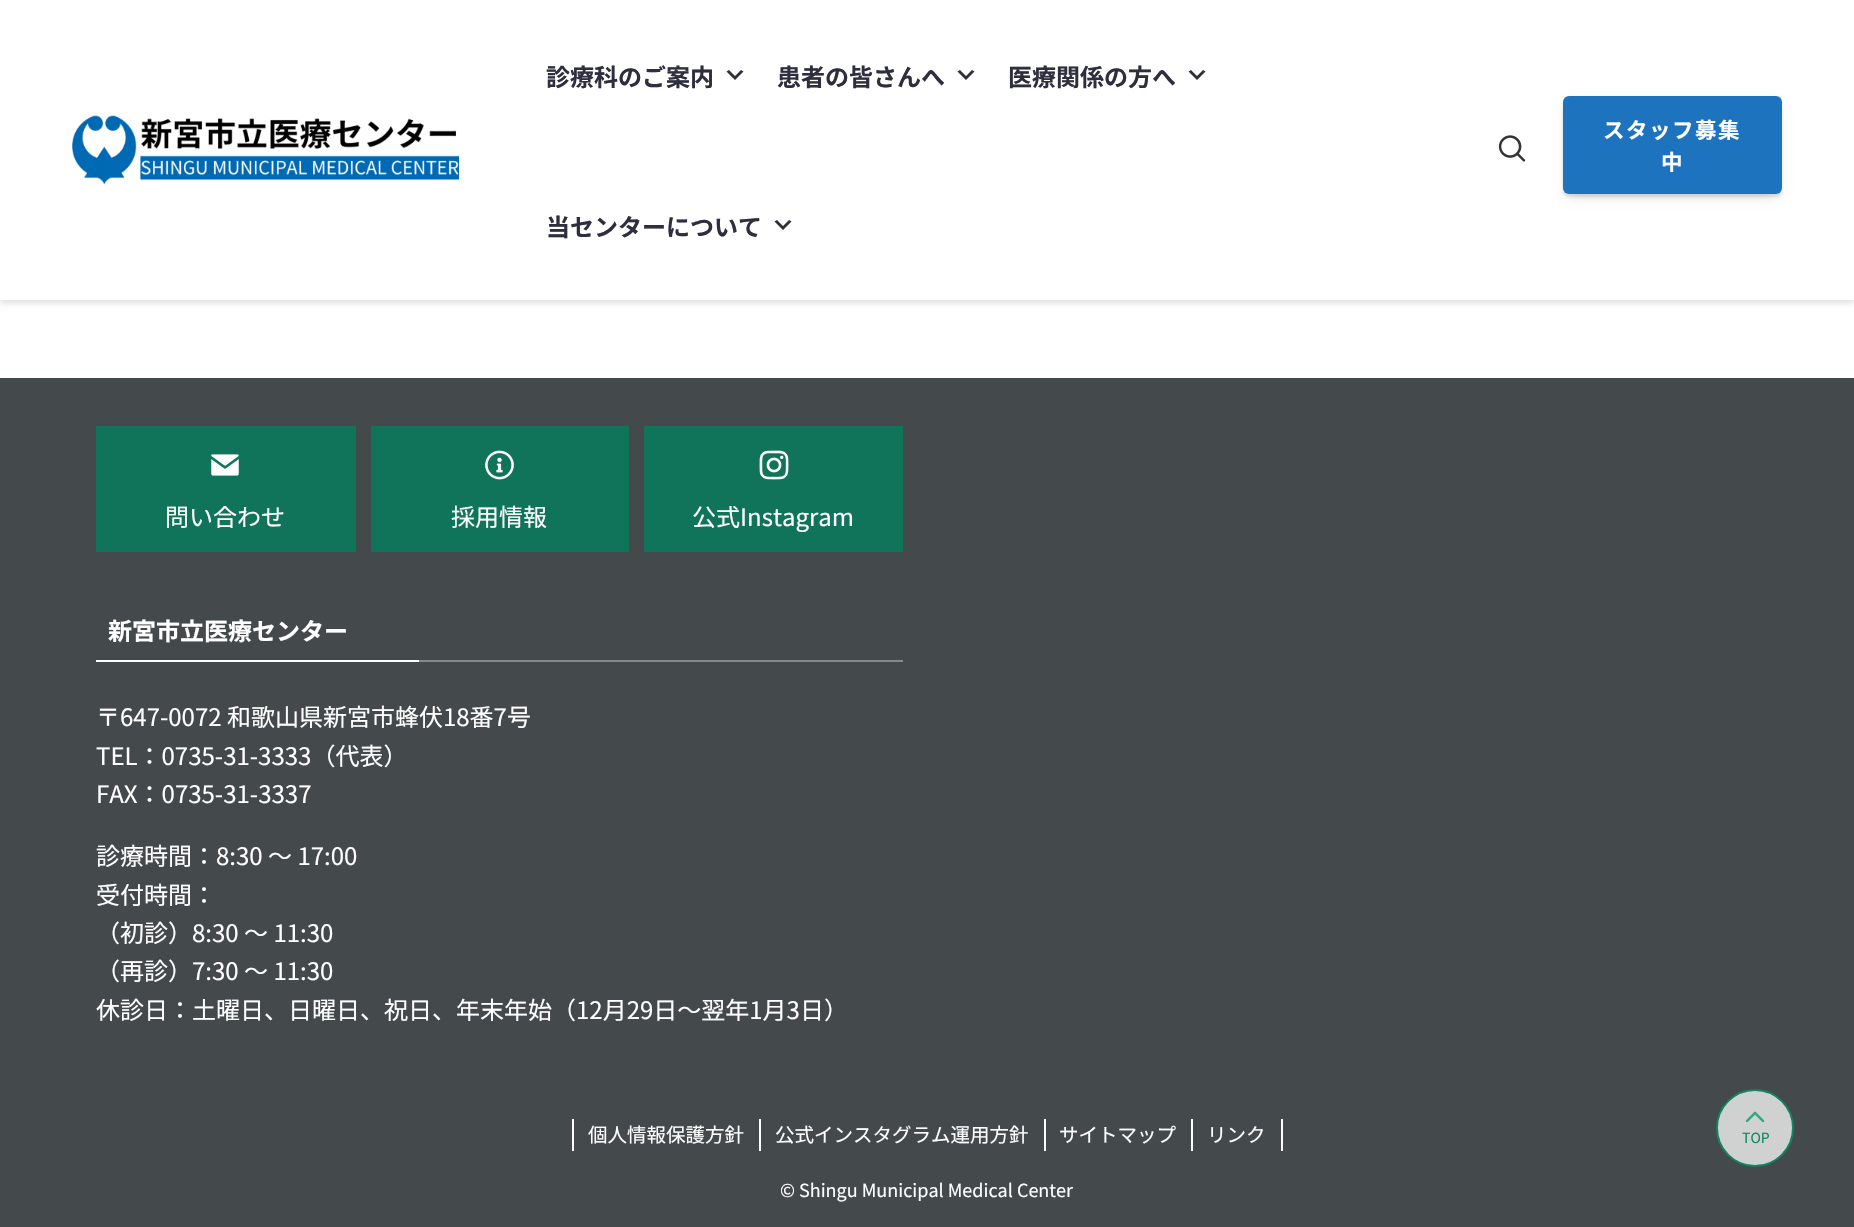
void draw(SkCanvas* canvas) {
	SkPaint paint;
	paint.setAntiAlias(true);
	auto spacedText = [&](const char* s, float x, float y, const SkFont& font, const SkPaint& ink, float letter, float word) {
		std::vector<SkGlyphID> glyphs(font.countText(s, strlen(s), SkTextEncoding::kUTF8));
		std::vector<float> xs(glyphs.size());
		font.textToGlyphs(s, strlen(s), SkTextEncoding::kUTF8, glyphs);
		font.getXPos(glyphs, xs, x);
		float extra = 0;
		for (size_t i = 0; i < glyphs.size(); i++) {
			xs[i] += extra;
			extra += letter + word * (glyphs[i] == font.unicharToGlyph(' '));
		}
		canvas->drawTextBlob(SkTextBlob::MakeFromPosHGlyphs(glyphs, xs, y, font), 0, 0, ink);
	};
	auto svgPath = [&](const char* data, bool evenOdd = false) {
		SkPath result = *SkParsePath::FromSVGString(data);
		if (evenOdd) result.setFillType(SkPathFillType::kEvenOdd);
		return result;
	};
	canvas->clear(0xffffffff);
	paint.setColor(0x1f000000);
	paint.setMaskFilter(SkMaskFilter::MakeBlur(kNormal_SkBlurStyle, 3));
	canvas->drawRect(SkRect::MakeXYWH(0, 3, 1854, 300), paint);
	paint.setMaskFilter(nullptr);
	paint.setColor(0xffffffff);
	canvas->drawRect(SkRect::MakeXYWH(0, 0, 1854, 300), paint);
	canvas->drawImageRect(SkImages::DeferredFromEncodedData(SkData::MakeFromFileName("img1.png")), SkRect::MakeXYWH(72, 115, 387, 70), SkSamplingOptions());
	SkFont f1(fontMgr->matchFamilyStyle("Noto Sans JP", SkFontStyle::Bold()), 24);
	f1.setSubpixel(true);
	paint.setColor(0xff2e2e3e);
	canvas->drawString("診療科のご案内", 546, 86, f1, paint);
	canvas->drawPath(svgPath("M729 70L735 76L741 70L743.5 71.5L735 80L726.5 71.5Z"), paint);
	canvas->drawString("患者の皆さんへ", 777, 86, f1, paint);
	canvas->drawPath(svgPath("M960 70L966 76L972 70L974.5 71.5L966 80L957.5 71.5Z"), paint);
	canvas->drawString("医療関係の方へ", 1008, 86, f1, paint);
	canvas->drawPath(svgPath("M1191 70L1197 76L1203 70L1205.5 71.5L1197 80L1188.5 71.5Z"), paint);
	canvas->drawString("当センターについて", 546, 236, f1, paint);
	canvas->drawPath(svgPath("M777 220L783 226L789 220L791.5 221.5L783 230L774.5 221.5Z"), paint);
	canvas->drawImageRect(SkImages::DeferredFromEncodedData(SkData::MakeFromFileName("img2.png")), SkRect::MakeXYWH(1498, 135, 28, 27), SkSamplingOptions());
	paint.setColor(0x33000000);
	paint.setMaskFilter(SkMaskFilter::MakeBlur(kNormal_SkBlurStyle, 6));
	canvas->drawRect(SkRect::MakeXYWH(1569, 108, 207, 86), paint);
	paint.setMaskFilter(nullptr);
	paint.setColor(0x1a000000);
	paint.setMaskFilter(SkMaskFilter::MakeBlur(kNormal_SkBlurStyle, 1.5));
	canvas->drawRoundRect(SkRect::MakeXYWH(1563, 99, 219, 98), 6, 6, paint);
	paint.setMaskFilter(nullptr);
	paint.setColor(0xff1e73be);
	canvas->drawRoundRect(SkRect::MakeXYWH(1563, 96, 219, 98), 6, 6, paint);
	SkFont f2(fontMgr->matchFamilyStyle("Noto Sans JP", SkFontStyle::Bold()), 21.5);
	f2.setSubpixel(true);
	paint.setColor(0xffffffff);
	spacedText("スタッフ募集", 1603, 138, f2, paint, 1.5, 0);
	spacedText("中", 1661, 170, f2, paint, 1.5, 0);
	paint.setColor(0xff44494b);
	canvas->drawRect(SkRect::MakeXYWH(0, 378, 1854, 849), paint);
	paint.setColor(0xff0f7459);
	canvas->drawRect(SkRect::MakeXYWH(96, 426, 260, 126), paint);
	canvas->drawImageRect(SkImages::DeferredFromEncodedData(SkData::MakeFromFileName("img3.png")), SkRect::MakeXYWH(211, 454, 28, 22), SkSamplingOptions());
	SkFont f3(fontMgr->matchFamilyStyle("Noto Sans JP", SkFontStyle::Normal()), 24);
	f3.setSubpixel(true);
	paint.setColor(0xffffffff);
	canvas->drawString("問い合わせ", 165, 526, f3, paint);
	paint.setColor(0xff0f7459);
	canvas->drawRect(SkRect::MakeXYWH(371, 426, 258, 126), paint);
	canvas->drawImageRect(SkImages::DeferredFromEncodedData(SkData::MakeFromFileName("img4.png")), SkRect::MakeXYWH(485, 450, 29, 30), SkSamplingOptions());
	paint.setColor(0xffffffff);
	canvas->drawString("採用情報", 451, 526, f3, paint);
	paint.setColor(0xff0f7459);
	canvas->drawRect(SkRect::MakeXYWH(644, 426, 259, 126), paint);
	canvas->drawImageRect(SkImages::DeferredFromEncodedData(SkData::MakeFromFileName("img5.png")), SkRect::MakeXYWH(759, 450, 30, 30), SkSamplingOptions());
	paint.setColor(0xffffffff);
	canvas->drawString("公式Instagram", 692, 526, f3, paint);
	canvas->drawString("新宮市立医療センター", 108, 640, f1, paint);
	canvas->drawRect(SkRect::MakeXYWH(96, 660, 323, 2), paint);
	paint.setColor(0xff868889);
	canvas->drawRect(SkRect::MakeXYWH(419, 660, 484, 2), paint);
	paint.setColor(0xffffffff);
	canvas->drawString("〒647-0072 和歌山県新宮市蜂伏18番7号", 96, 726, f3, paint);
	canvas->drawString("TEL：0735-31-3333（代表）", 96, 765, f3, paint);
	canvas->drawString("FAX：0735-31-3337", 96, 803, f3, paint);
	canvas->drawString("診療時間：8:30 ～ 17:00", 96, 865, f3, paint);
	canvas->drawString("受付時間：", 96, 904, f3, paint);
	canvas->drawString("（初診）8:30 ～ 11:30", 96, 942, f3, paint);
	canvas->drawString("（再診）7:30 ～ 11:30", 96, 980, f3, paint);
	canvas->drawString("休診日：土曜日、日曜日、祝日、年末年始（12月29日～翌年1月3日）", 96, 1019, f3, paint);
	canvas->drawRect(SkRect::MakeXYWH(759, 1119, 2, 32), paint);
	canvas->drawRect(SkRect::MakeXYWH(572, 1119, 2, 32), paint);
	SkFont f4(fontMgr->matchFamilyStyle("Noto Sans JP", SkFontStyle::Normal()), 19.5);
	f4.setSubpixel(true);
	canvas->drawString("個人情報保護方針", 588, 1142, f4, paint);
	canvas->drawRect(SkRect::MakeXYWH(1044, 1119, 2, 32), paint);
	canvas->drawString("公式インスタグラム運用方針", 775, 1142, f4, paint);
	canvas->drawRect(SkRect::MakeXYWH(1191, 1119, 2, 32), paint);
	canvas->drawString("サイトマップ", 1059, 1142, f4, paint);
	canvas->drawRect(SkRect::MakeXYWH(1281, 1119, 2, 32), paint);
	canvas->drawString("リンク", 1207, 1142, f4, paint);
	SkFont f5(fontMgr->matchFamilyStyle("Noto Sans JP", SkFontStyle::Normal()), 18);
	f5.setSubpixel(true);
	canvas->drawString("© Shingu Municipal Medical Center", 780, 1197, f5, paint);
	paint.setColor(0xffd0d2d2);
	canvas->drawCircle(1755, 1128, 38, paint);
	paint.setStroke(true);
	paint.setStrokeWidth(2);
	paint.setColor(0xff11855f);
	canvas->drawCircle(1755, 1128, 38, paint);
	canvas->drawImageRect(SkImages::DeferredFromEncodedData(SkData::MakeFromFileName("img6.png")), SkRect::MakeXYWH(1745, 1111, 20, 12), SkSamplingOptions());
	SkFont f6(fontMgr->matchFamilyStyle("Noto Sans JP", SkFontStyle::Normal()), 14);
	f6.setSubpixel(true);
	paint.setStroke(false);
	canvas->drawString("TOP", 1742, 1143, f6, paint);
}
